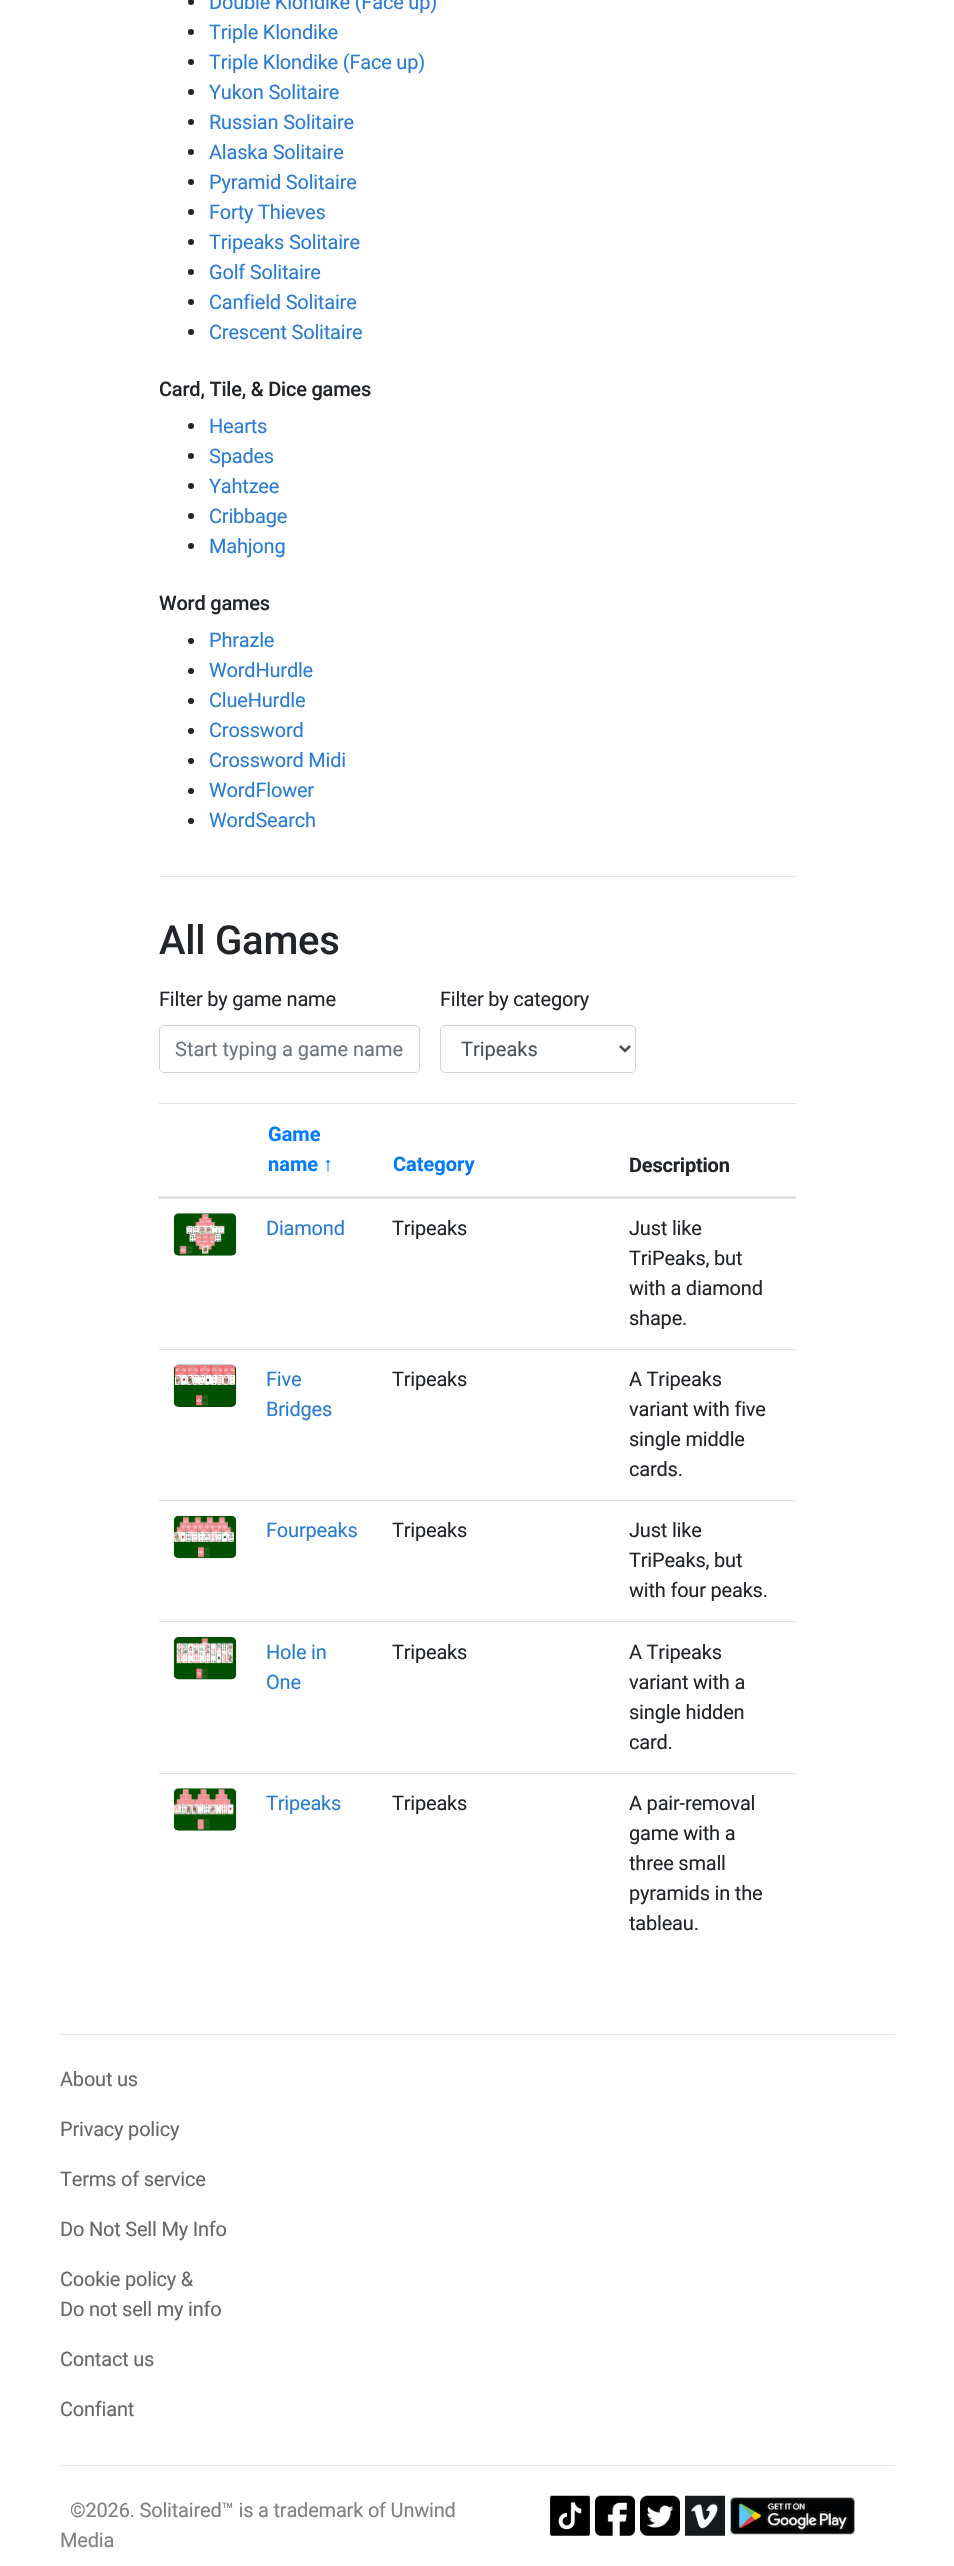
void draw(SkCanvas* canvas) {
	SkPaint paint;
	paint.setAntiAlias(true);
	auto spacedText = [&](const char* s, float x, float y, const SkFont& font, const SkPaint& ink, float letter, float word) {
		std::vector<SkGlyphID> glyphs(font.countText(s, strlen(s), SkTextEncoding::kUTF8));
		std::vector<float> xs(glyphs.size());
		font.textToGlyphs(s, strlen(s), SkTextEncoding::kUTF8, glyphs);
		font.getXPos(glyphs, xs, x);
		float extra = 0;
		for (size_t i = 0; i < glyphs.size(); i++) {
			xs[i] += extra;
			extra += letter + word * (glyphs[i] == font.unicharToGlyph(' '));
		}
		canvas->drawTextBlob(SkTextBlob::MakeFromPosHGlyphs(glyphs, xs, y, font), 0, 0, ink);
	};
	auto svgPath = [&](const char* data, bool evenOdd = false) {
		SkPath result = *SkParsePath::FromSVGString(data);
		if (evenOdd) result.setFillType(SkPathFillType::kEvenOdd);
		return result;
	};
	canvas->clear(0xffffffff);
	paint.setColor(0xff212529);
	canvas->drawCircle(191, 2, 3, paint);
	SkFont f1(fontMgr->matchFamilyStyle("Roboto", SkFontStyle::Normal()), 20);
	f1.setSubpixel(true);
	paint.setColor(0xff2a7cd3);
	spacedText("Double Klondike (Face up)", 209, 9, f1, paint, -0.2, 0);
	paint.setColor(0xff212529);
	canvas->drawCircle(191, 32, 3, paint);
	paint.setColor(0xff2a7cd3);
	spacedText("Triple Klondike", 209, 39, f1, paint, -0.2, 0);
	paint.setColor(0xff212529);
	canvas->drawCircle(191, 62, 3, paint);
	paint.setColor(0xff2a7cd3);
	spacedText("Triple Klondike (Face up)", 209, 69, f1, paint, -0.2, 0);
	paint.setColor(0xff212529);
	canvas->drawCircle(191, 92, 3, paint);
	paint.setColor(0xff2a7cd3);
	spacedText("Yukon Solitaire", 209, 99, f1, paint, -0.2, 0);
	paint.setColor(0xff212529);
	canvas->drawCircle(191, 122, 3, paint);
	paint.setColor(0xff2a7cd3);
	spacedText("Russian Solitaire", 209, 129, f1, paint, -0.2, 0);
	paint.setColor(0xff212529);
	canvas->drawCircle(191, 152, 3, paint);
	paint.setColor(0xff2a7cd3);
	spacedText("Alaska Solitaire", 209, 159, f1, paint, -0.2, 0);
	paint.setColor(0xff212529);
	canvas->drawCircle(191, 182, 3, paint);
	paint.setColor(0xff2a7cd3);
	spacedText("Pyramid Solitaire", 209, 189, f1, paint, -0.2, 0);
	paint.setColor(0xff212529);
	canvas->drawCircle(191, 212, 3, paint);
	paint.setColor(0xff2a7cd3);
	spacedText("Forty Thieves", 209, 219, f1, paint, -0.2, 0);
	paint.setColor(0xff212529);
	canvas->drawCircle(191, 242, 3, paint);
	paint.setColor(0xff2a7cd3);
	spacedText("Tripeaks Solitaire", 209, 249, f1, paint, -0.2, 0);
	paint.setColor(0xff212529);
	canvas->drawCircle(191, 272, 3, paint);
	paint.setColor(0xff2a7cd3);
	spacedText("Golf Solitaire", 209, 279, f1, paint, -0.2, 0);
	paint.setColor(0xff212529);
	canvas->drawCircle(191, 302, 3, paint);
	paint.setColor(0xff2a7cd3);
	spacedText("Canfield Solitaire", 209, 309, f1, paint, -0.2, 0);
	paint.setColor(0xff212529);
	canvas->drawCircle(191, 332, 3, paint);
	paint.setColor(0xff2a7cd3);
	spacedText("Crescent Solitaire", 209, 339, f1, paint, -0.2, 0);
	SkFont f2(fontMgr->matchFamilyStyle("Roboto", SkFontStyle(500, SkFontStyle::kNormal_Width, SkFontStyle::kUpright_Slant)), 20);
	f2.setSubpixel(true);
	paint.setColor(0xff212529);
	spacedText("Card, Tile, & Dice games", 159, 396, f2, paint, -0.2, 0);
	canvas->drawCircle(191, 426, 3, paint);
	paint.setColor(0xff2a7cd3);
	spacedText("Hearts", 209, 433, f1, paint, -0.2, 0);
	paint.setColor(0xff212529);
	canvas->drawCircle(191, 456, 3, paint);
	paint.setColor(0xff2a7cd3);
	spacedText("Spades", 209, 463, f1, paint, -0.2, 0);
	paint.setColor(0xff212529);
	canvas->drawCircle(191, 486, 3, paint);
	paint.setColor(0xff2a7cd3);
	spacedText("Yahtzee", 209, 493, f1, paint, -0.2, 0);
	paint.setColor(0xff212529);
	canvas->drawCircle(191, 516, 3, paint);
	paint.setColor(0xff2a7cd3);
	spacedText("Cribbage", 209, 523, f1, paint, -0.2, 0);
	paint.setColor(0xff212529);
	canvas->drawCircle(191, 546, 3, paint);
	paint.setColor(0xff2a7cd3);
	spacedText("Mahjong", 209, 553, f1, paint, -0.2, 0);
	paint.setColor(0xff212529);
	spacedText("Word games", 159, 610, f2, paint, -0.2, 0);
	canvas->drawCircle(191, 641, 3, paint);
	paint.setColor(0xff2a7cd3);
	spacedText("Phrazle", 209, 647, f1, paint, -0.2, 0);
	paint.setColor(0xff212529);
	canvas->drawCircle(191, 671, 3, paint);
	paint.setColor(0xff2a7cd3);
	spacedText("WordHurdle", 209, 677, f1, paint, -0.2, 0);
	paint.setColor(0xff212529);
	canvas->drawCircle(191, 701, 3, paint);
	paint.setColor(0xff2a7cd3);
	spacedText("ClueHurdle", 209, 707, f1, paint, -0.2, 0);
	paint.setColor(0xff212529);
	canvas->drawCircle(191, 731, 3, paint);
	paint.setColor(0xff2a7cd3);
	spacedText("Crossword", 209, 737, f1, paint, -0.2, 0);
	paint.setColor(0xff212529);
	canvas->drawCircle(191, 761, 3, paint);
	paint.setColor(0xff2a7cd3);
	spacedText("Crossword Midi", 209, 767, f1, paint, -0.2, 0);
	paint.setColor(0xff212529);
	canvas->drawCircle(191, 791, 3, paint);
	paint.setColor(0xff2a7cd3);
	spacedText("WordFlower", 209, 797, f1, paint, -0.2, 0);
	paint.setColor(0xff212529);
	canvas->drawCircle(191, 821, 3, paint);
	paint.setColor(0xff2a7cd3);
	spacedText("WordSearch", 209, 827, f1, paint, -0.2, 0);
	paint.setColor(0xffe6e6e6);
	canvas->drawRect(SkRect::MakeXYWH(159, 876, 637, 1), paint);
	SkFont f3(fontMgr->matchFamilyStyle("Roboto", SkFontStyle(500, SkFontStyle::kNormal_Width, SkFontStyle::kUpright_Slant)), 40);
	f3.setSubpixel(true);
	paint.setColor(0xff212529);
	spacedText("All Games", 159, 954, f3, paint, -0.2, 0);
	spacedText("Filter by game name", 159, 1006, f1, paint, -0.2, 0);
	paint.setStroke(true);
	paint.setStrokeWidth(1);
	paint.setColor(0xffced4da);
	canvas->drawRoundRect(SkRect::MakeXYWH(159.5, 1025.5, 260, 47), 4.5, 4.5, paint);
	canvas->save();
	canvas->clipRect(SkRect::MakeXYWH(175, 1036, 229, 24));
	paint.setStroke(false);
	paint.setColor(0xff6c757d);
	canvas->drawString("Start typing a game name", 175, 1056, f1, paint);
	canvas->restore();
	paint.setColor(0xff212529);
	spacedText("Filter by category", 440, 1006, f1, paint, -0.2, 0);
	paint.setStroke(true);
	paint.setColor(0xffced4da);
	canvas->drawRoundRect(SkRect::MakeXYWH(440.5, 1025.5, 195, 47), 4.5, 4.5, paint);
	paint.setStrokeWidth(2.5);
	paint.setColor(0xff495057);
	canvas->drawPath(svgPath("M620 1046L625 1051L630 1046"), paint);
	paint.setStroke(false);
	canvas->drawString("Tripeaks", 461, 1056, f1, paint);
	SkFont f4(fontMgr->matchFamilyStyle("Roboto", SkFontStyle::Bold()), 20);
	f4.setSubpixel(true);
	paint.setColor(0xff007bff);
	canvas->drawString("Game", 268, 1141, f4, paint);
	canvas->drawString("name", 268, 1171, f4, paint);
	SkFont f5(fontMgr->matchFamilyStyle("Liberation Sans", SkFontStyle::Bold()), 20);
	f5.setSubpixel(true);
	canvas->drawString("↑", 323, 1171, f5, paint);
	canvas->drawString("Category", 393, 1171, f4, paint);
	paint.setColor(0xffdee2e6);
	canvas->drawRect(SkRect::MakeXYWH(159, 1103, 637, 1), paint);
	canvas->drawRect(SkRect::MakeXYWH(159, 1196, 637, 3), paint);
	paint.setColor(0xff212529);
	spacedText("Description", 629, 1172, f4, paint, -0.2, 0);
	canvas->drawImageRect(SkImages::DeferredFromEncodedData(SkData::MakeFromFileName("img1.png")), SkRect::MakeXYWH(173, 1213, 64, 43), SkSamplingOptions());
	paint.setColor(0xff2a7cd3);
	spacedText("Diamond", 266, 1235, f1, paint, -0.2, 0);
	paint.setColor(0xff212529);
	spacedText("Tripeaks", 392, 1235, f1, paint, -0.2, 0);
	spacedText("Just like", 629, 1235, f1, paint, -0.2, 0);
	spacedText("TriPeaks, but", 629, 1265, f1, paint, -0.2, 0);
	spacedText("with a diamond", 629, 1295, f1, paint, -0.2, 0);
	spacedText("shape.", 629, 1325, f1, paint, -0.2, 0);
	canvas->drawImageRect(SkImages::DeferredFromEncodedData(SkData::MakeFromFileName("img2.png")), SkRect::MakeXYWH(173, 1364, 64, 43), SkSamplingOptions());
	paint.setColor(0xff2a7cd3);
	spacedText("Five", 266, 1386, f1, paint, -0.2, 0);
	spacedText("Bridges", 266, 1416, f1, paint, -0.2, 0);
	paint.setColor(0xff212529);
	spacedText("Tripeaks", 392, 1386, f1, paint, -0.2, 0);
	paint.setColor(0xffdee2e6);
	canvas->drawRect(SkRect::MakeXYWH(159, 1349, 637, 1), paint);
	paint.setColor(0xff212529);
	spacedText("A Tripeaks", 629, 1386, f1, paint, -0.2, 0);
	spacedText("variant with five", 629, 1416, f1, paint, -0.2, 0);
	spacedText("single middle", 629, 1446, f1, paint, -0.2, 0);
	spacedText("cards.", 629, 1476, f1, paint, -0.2, 0);
	canvas->drawImageRect(SkImages::DeferredFromEncodedData(SkData::MakeFromFileName("img3.png")), SkRect::MakeXYWH(173, 1515, 64, 44), SkSamplingOptions());
	paint.setColor(0xff2a7cd3);
	spacedText("Fourpeaks", 266, 1537, f1, paint, -0.2, 0);
	paint.setColor(0xff212529);
	spacedText("Tripeaks", 392, 1537, f1, paint, -0.2, 0);
	paint.setColor(0xffdee2e6);
	canvas->drawRect(SkRect::MakeXYWH(159, 1500, 637, 1), paint);
	paint.setColor(0xff212529);
	spacedText("Just like", 629, 1537, f1, paint, -0.2, 0);
	spacedText("TriPeaks, but", 629, 1567, f1, paint, -0.2, 0);
	spacedText("with four peaks.", 629, 1597, f1, paint, -0.2, 0);
	canvas->drawImageRect(SkImages::DeferredFromEncodedData(SkData::MakeFromFileName("img4.png")), SkRect::MakeXYWH(173, 1637, 64, 43), SkSamplingOptions());
	paint.setColor(0xff2a7cd3);
	spacedText("Hole in", 266, 1659, f1, paint, -0.2, 0);
	spacedText("One", 266, 1689, f1, paint, -0.2, 0);
	paint.setColor(0xff212529);
	spacedText("Tripeaks", 392, 1659, f1, paint, -0.2, 0);
	paint.setColor(0xffdee2e6);
	canvas->drawRect(SkRect::MakeXYWH(159, 1621, 637, 1), paint);
	paint.setColor(0xff212529);
	spacedText("A Tripeaks", 629, 1659, f1, paint, -0.2, 0);
	spacedText("variant with a", 629, 1689, f1, paint, -0.2, 0);
	spacedText("single hidden", 629, 1719, f1, paint, -0.2, 0);
	spacedText("card.", 629, 1749, f1, paint, -0.2, 0);
	canvas->drawImageRect(SkImages::DeferredFromEncodedData(SkData::MakeFromFileName("img5.png")), SkRect::MakeXYWH(173, 1788, 64, 43), SkSamplingOptions());
	paint.setColor(0xff2a7cd3);
	spacedText("Tripeaks", 266, 1810, f1, paint, -0.2, 0);
	paint.setColor(0xff212529);
	spacedText("Tripeaks", 392, 1810, f1, paint, -0.2, 0);
	paint.setColor(0xffdee2e6);
	canvas->drawRect(SkRect::MakeXYWH(159, 1773, 637, 1), paint);
	paint.setColor(0xff212529);
	spacedText("A pair-removal", 629, 1810, f1, paint, -0.2, 0);
	spacedText("game with a", 629, 1840, f1, paint, -0.2, 0);
	spacedText("three small", 629, 1870, f1, paint, -0.2, 0);
	spacedText("pyramids in the", 629, 1900, f1, paint, -0.2, 0);
	spacedText("tableau.", 629, 1930, f1, paint, -0.2, 0);
	paint.setColor(0xffe6e6e6);
	canvas->drawRect(SkRect::MakeXYWH(60, 2034, 835, 1), paint);
	paint.setColor(0xff666666);
	spacedText("About us", 60, 2086, f1, paint, -0.2, 0);
	spacedText("Privacy policy", 60, 2136, f1, paint, -0.2, 0);
	spacedText("Terms of service", 60, 2186, f1, paint, -0.2, 0);
	spacedText("Do Not Sell My Info", 60, 2236, f1, paint, -0.2, 0);
	spacedText("Cookie policy &", 60, 2286, f1, paint, -0.2, 0);
	spacedText("Do not sell my info", 60, 2316, f1, paint, -0.2, 0);
	spacedText("Contact us", 60, 2366, f1, paint, -0.2, 0);
	spacedText("Confiant", 60, 2416, f1, paint, -0.2, 0);
	paint.setColor(0xffe6e6e6);
	canvas->drawRect(SkRect::MakeXYWH(60, 2465, 835, 1), paint);
	paint.setColor(0xff808080);
	spacedText("©2026. Solitaired™ is a trademark of Unwind", 70, 2517, f1, paint, -0.2, 0);
	spacedText("Media", 60, 2547, f1, paint, -0.2, 0);
	canvas->drawImageRect(SkImages::DeferredFromEncodedData(SkData::MakeFromFileName("img6.png")), SkRect::MakeXYWH(550, 2495, 40, 41), SkSamplingOptions());
	canvas->drawImageRect(SkImages::DeferredFromEncodedData(SkData::MakeFromFileName("img7.png")), SkRect::MakeXYWH(595, 2495, 40, 41), SkSamplingOptions());
	canvas->drawImageRect(SkImages::DeferredFromEncodedData(SkData::MakeFromFileName("img8.png")), SkRect::MakeXYWH(640, 2495, 40, 41), SkSamplingOptions());
	canvas->drawImageRect(SkImages::DeferredFromEncodedData(SkData::MakeFromFileName("img9.png")), SkRect::MakeXYWH(685, 2495, 40, 41), SkSamplingOptions());
	canvas->drawImageRect(SkImages::DeferredFromEncodedData(SkData::MakeFromFileName("img10.png")), SkRect::MakeXYWH(730, 2497, 125, 38), SkSamplingOptions());
}
